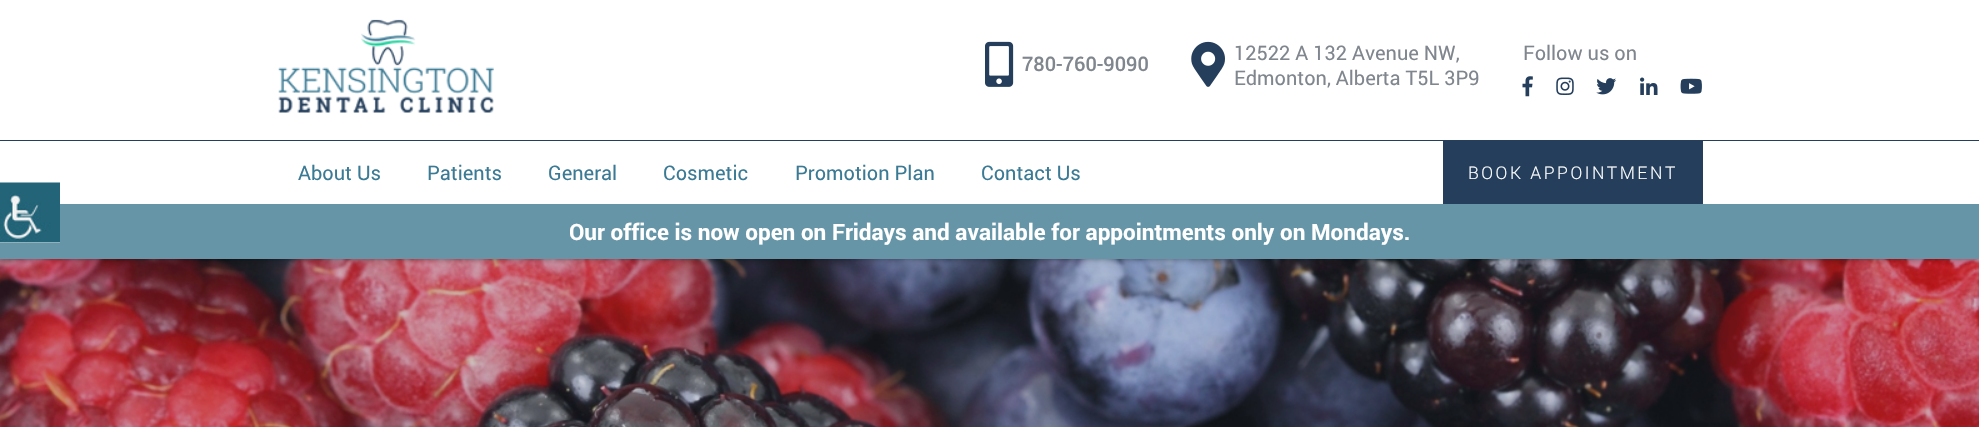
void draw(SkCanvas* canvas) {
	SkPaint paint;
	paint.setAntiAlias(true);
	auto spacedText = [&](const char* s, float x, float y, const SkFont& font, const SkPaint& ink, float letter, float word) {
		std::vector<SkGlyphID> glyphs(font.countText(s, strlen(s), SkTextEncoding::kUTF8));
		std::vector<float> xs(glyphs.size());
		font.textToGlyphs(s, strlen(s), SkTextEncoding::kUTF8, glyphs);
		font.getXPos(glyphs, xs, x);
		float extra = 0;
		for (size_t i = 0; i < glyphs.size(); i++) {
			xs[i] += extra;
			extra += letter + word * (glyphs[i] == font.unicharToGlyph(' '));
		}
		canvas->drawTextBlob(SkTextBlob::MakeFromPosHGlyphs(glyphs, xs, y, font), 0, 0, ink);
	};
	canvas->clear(0xffffffff);
	canvas->drawImageRect(SkImages::DeferredFromEncodedData(SkData::MakeFromFileName("img10.png")), SkRect::MakeXYWH(0, 259, 1979, 168), SkSamplingOptions());
	paint.setColor(0x66000000);
	paint.setMaskFilter(SkMaskFilter::MakeBlur(kNormal_SkBlurStyle, 3));
	canvas->drawRect(SkRect::MakeXYWH(0, 0, 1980, 259), paint);
	paint.setMaskFilter(nullptr);
	paint.setColor(0xff6695a7);
	canvas->drawRect(SkRect::MakeXYWH(0, 204, 1979, 55), paint);
	paint.setColor(0xffffffff);
	canvas->drawRect(SkRect::MakeXYWH(0, 242, 60, 1), paint);
	canvas->drawRect(SkRect::MakeXYWH(0, 0, 1979, 204), paint);
	canvas->drawImageRect(SkImages::DeferredFromEncodedData(SkData::MakeFromFileName("img1.png")), SkRect::MakeXYWH(0, 182, 60, 61), SkSamplingOptions());
	paint.setColor(0xff243e5b);
	canvas->drawRect(SkRect::MakeXYWH(0, 140, 1979, 1), paint);
	canvas->drawImageRect(SkImages::DeferredFromEncodedData(SkData::MakeFromFileName("img2.png")), SkRect::MakeXYWH(278, 19, 216, 94), SkSamplingOptions());
	canvas->drawImageRect(SkImages::DeferredFromEncodedData(SkData::MakeFromFileName("img3.png")), SkRect::MakeXYWH(985, 41, 29, 46), SkSamplingOptions());
	SkFont f1(fontMgr->matchFamilyStyle("Roboto", SkFontStyle(500, SkFontStyle::kNormal_Width, SkFontStyle::kUpright_Slant)), 20);
	f1.setSubpixel(true);
	paint.setColor(0xff80868e);
	canvas->drawString("780-760-9090", 1022, 71, f1, paint);
	canvas->drawImageRect(SkImages::DeferredFromEncodedData(SkData::MakeFromFileName("img4.png")), SkRect::MakeXYWH(1191, 41, 34, 46), SkSamplingOptions());
	SkFont f2(fontMgr->matchFamilyStyle("Roboto", SkFontStyle::Normal()), 20);
	f2.setSubpixel(true);
	canvas->drawString("12522 A 132 Avenue NW,", 1234, 60, f2, paint);
	canvas->drawString("Edmonton, Alberta T5L 3P9", 1234, 85, f2, paint);
	canvas->drawString("Follow us on", 1523, 60, f2, paint);
	canvas->drawImageRect(SkImages::DeferredFromEncodedData(SkData::MakeFromFileName("img5.png")), SkRect::MakeXYWH(1522, 76, 11, 21), SkSamplingOptions());
	canvas->drawImageRect(SkImages::DeferredFromEncodedData(SkData::MakeFromFileName("img6.png")), SkRect::MakeXYWH(1556, 77, 18, 18), SkSamplingOptions());
	canvas->drawImageRect(SkImages::DeferredFromEncodedData(SkData::MakeFromFileName("img7.png")), SkRect::MakeXYWH(1596, 78, 21, 17), SkSamplingOptions());
	canvas->drawImageRect(SkImages::DeferredFromEncodedData(SkData::MakeFromFileName("img8.png")), SkRect::MakeXYWH(1640, 77, 18, 18), SkSamplingOptions());
	canvas->drawImageRect(SkImages::DeferredFromEncodedData(SkData::MakeFromFileName("img9.png")), SkRect::MakeXYWH(1680, 78, 22, 16), SkSamplingOptions());
	paint.setColor(0xff3b7a94);
	canvas->drawString("About Us", 298, 180, f2, paint);
	canvas->drawString("Patients", 427, 180, f2, paint);
	canvas->drawString("General", 548, 180, f2, paint);
	canvas->drawString("Cosmetic", 663, 180, f2, paint);
	canvas->drawString("Promotion Plan", 795, 180, f2, paint);
	canvas->drawString("Contact Us", 981, 180, f2, paint);
	paint.setColor(0xff243e5b);
	canvas->drawRect(SkRect::MakeXYWH(1443, 141, 260, 63), paint);
	SkFont f3(fontMgr->matchFamilyStyle("Roboto", SkFontStyle(300, SkFontStyle::kNormal_Width, SkFontStyle::kUpright_Slant)), 17.5);
	f3.setSubpixel(true);
	paint.setColor(0xffffffff);
	spacedText("BOOK APPOINTMENT", 1468, 179, f3, paint, 2.5, 0);
	SkFont f4(fontMgr->matchFamilyStyle("Roboto", SkFontStyle::Bold()), 22.5);
	f4.setSubpixel(true);
	canvas->drawString("Our office is now open on Fridays and available for appointments only on Mondays.", 569, 240, f4, paint);
}
